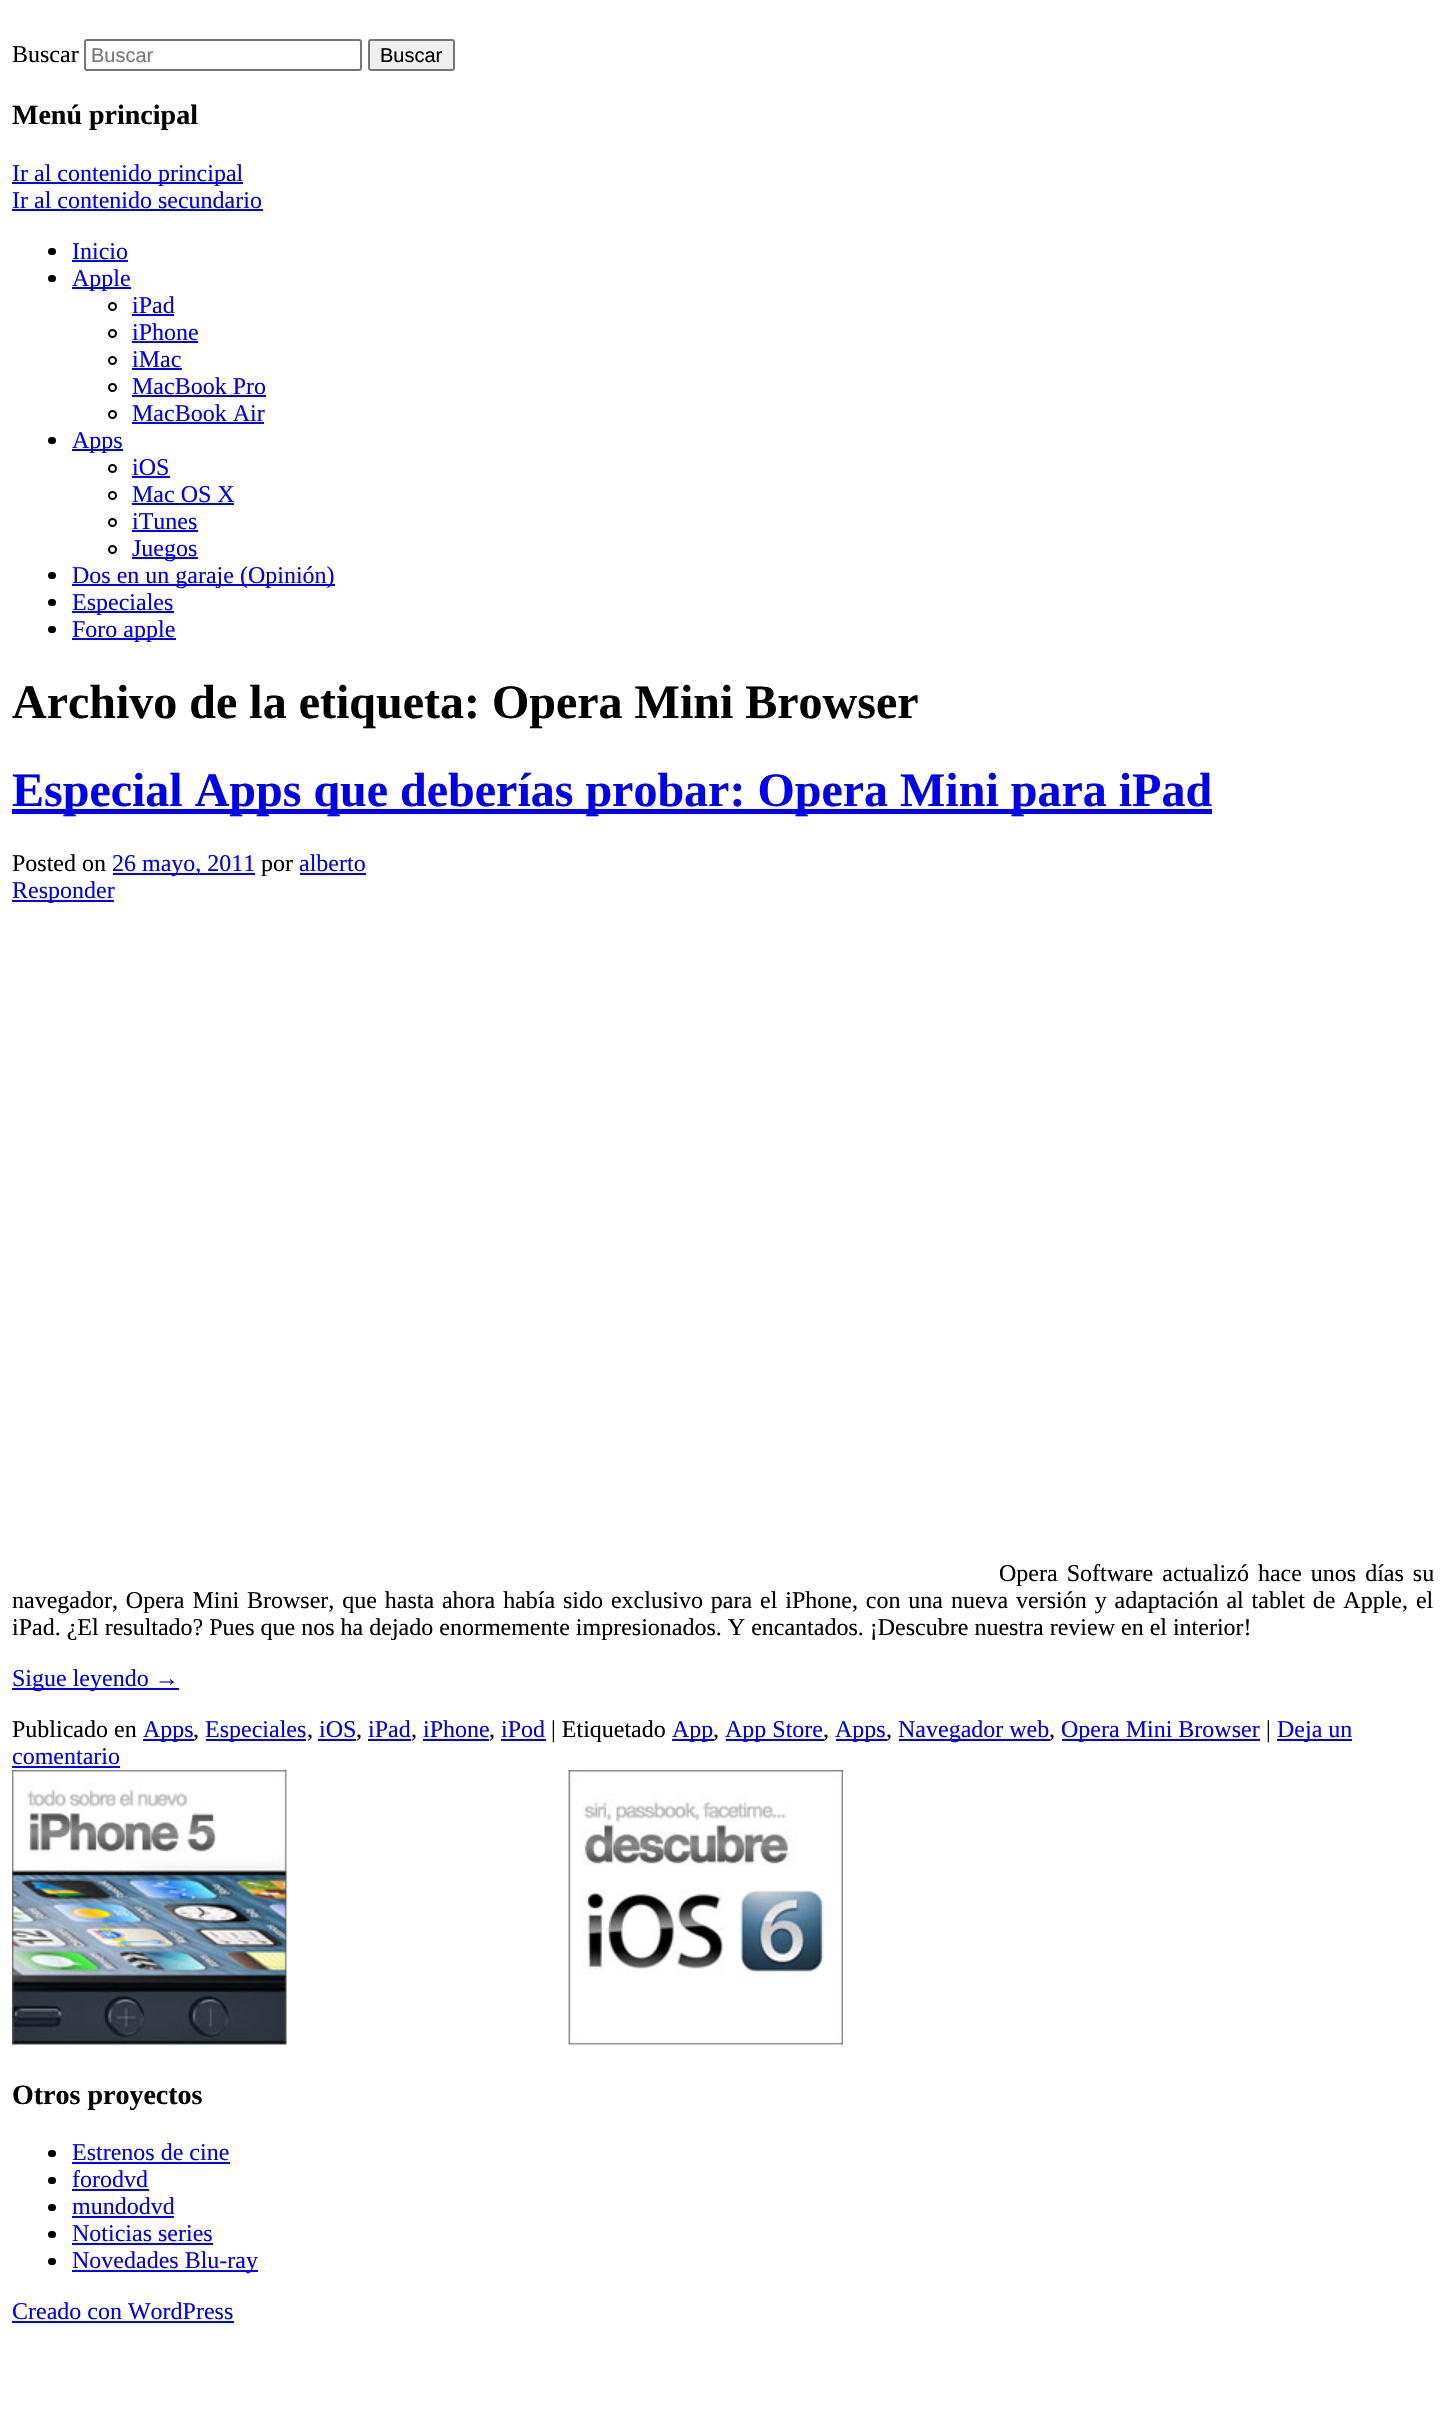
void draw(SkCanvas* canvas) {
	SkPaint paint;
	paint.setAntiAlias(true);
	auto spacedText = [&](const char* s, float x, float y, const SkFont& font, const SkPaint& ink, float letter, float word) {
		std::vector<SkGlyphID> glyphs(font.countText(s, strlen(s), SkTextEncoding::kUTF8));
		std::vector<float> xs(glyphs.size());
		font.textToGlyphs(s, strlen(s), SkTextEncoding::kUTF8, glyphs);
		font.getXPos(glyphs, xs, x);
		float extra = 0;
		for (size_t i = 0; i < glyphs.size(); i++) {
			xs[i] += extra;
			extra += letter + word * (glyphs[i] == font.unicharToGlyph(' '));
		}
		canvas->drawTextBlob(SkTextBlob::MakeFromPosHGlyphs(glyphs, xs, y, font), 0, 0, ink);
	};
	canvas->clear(0xffffffff);
	SkFont f1(fontMgr->matchFamilyStyle("Liberation Serif", SkFontStyle::Normal()), 24);
	f1.setSubpixel(true);
	paint.setColor(0xff000000);
	canvas->drawString("Buscar", 12, 62, f1, paint);
	paint.setStroke(true);
	paint.setStrokeWidth(2);
	paint.setColor(0xff767676);
	canvas->drawRoundRect(SkRect::MakeXYWH(85, 40, 276, 30), 2, 2, paint);
	SkFont f2(fontMgr->matchFamilyStyle("Liberation Sans", SkFontStyle::Normal()), 20);
	f2.setSubpixel(true);
	paint.setStroke(false);
	paint.setColor(0xff757575);
	canvas->drawString("Buscar", 91, 62, f2, paint);
	paint.setColor(0xffefefef);
	canvas->drawRoundRect(SkRect::MakeXYWH(369, 40, 85, 30), 2, 2, paint);
	paint.setStroke(true);
	paint.setColor(0xff767676);
	canvas->drawRoundRect(SkRect::MakeXYWH(369, 40, 85, 30), 2, 2, paint);
	paint.setStroke(false);
	paint.setColor(0xff000000);
	canvas->drawString("Buscar", 380, 62, f2, paint);
	SkFont f3(fontMgr->matchFamilyStyle("Liberation Serif", SkFontStyle::Bold()), 28);
	f3.setSubpixel(true);
	canvas->drawString("Menú principal", 12, 124, f3, paint);
	paint.setColor(0xff0000ee);
	canvas->drawRect(SkRect::MakeXYWH(12, 182, 231, 2), paint);
	canvas->drawString("Ir al contenido principal", 12, 181, f1, paint);
	canvas->drawString("Ir al contenido secundario", 12, 208, f1, paint);
	canvas->drawRect(SkRect::MakeXYWH(12, 209, 251, 2), paint);
	paint.setColor(0xff000000);
	canvas->drawRoundRect(SkRect::MakeXYWH(48, 248, 8, 7), 3.5, 3.5, paint);
	paint.setColor(0xff0000ee);
	canvas->drawString("Inicio", 72, 259, f1, paint);
	canvas->drawRect(SkRect::MakeXYWH(72, 260, 56, 2), paint);
	paint.setColor(0xff000000);
	canvas->drawRoundRect(SkRect::MakeXYWH(48, 275, 8, 7), 3.5, 3.5, paint);
	paint.setColor(0xff0000ee);
	canvas->drawRect(SkRect::MakeXYWH(72, 287, 59, 2), paint);
	canvas->drawString("Apple", 72, 286, f1, paint);
	paint.setStroke(true);
	paint.setColor(0xff000000);
	canvas->drawCircle(112.5, 306.5, 3.5, paint);
	paint.setStroke(false);
	paint.setColor(0xff0000ee);
	canvas->drawString("iPad", 132, 313, f1, paint);
	canvas->drawRect(SkRect::MakeXYWH(132, 314, 42, 2), paint);
	paint.setStroke(true);
	paint.setColor(0xff000000);
	canvas->drawCircle(112.5, 333.5, 3.5, paint);
	paint.setStroke(false);
	paint.setColor(0xff0000ee);
	canvas->drawString("iPhone", 132, 340, f1, paint);
	canvas->drawRect(SkRect::MakeXYWH(132, 341, 66, 2), paint);
	paint.setStroke(true);
	paint.setColor(0xff000000);
	canvas->drawCircle(112.5, 360.5, 3.5, paint);
	paint.setStroke(false);
	paint.setColor(0xff0000ee);
	canvas->drawString("iMac", 132, 367, f1, paint);
	canvas->drawRect(SkRect::MakeXYWH(132, 368, 50, 2), paint);
	paint.setStroke(true);
	paint.setColor(0xff000000);
	canvas->drawCircle(112.5, 387.5, 3.5, paint);
	paint.setStroke(false);
	paint.setColor(0xff0000ee);
	canvas->drawString("MacBook Pro", 132, 394, f1, paint);
	canvas->drawRect(SkRect::MakeXYWH(132, 395, 134, 2), paint);
	paint.setStroke(true);
	paint.setColor(0xff000000);
	canvas->drawCircle(112.5, 414.5, 3.5, paint);
	paint.setStroke(false);
	paint.setColor(0xff0000ee);
	canvas->drawString("MacBook Air", 132, 421, f1, paint);
	canvas->drawRect(SkRect::MakeXYWH(132, 422, 132, 2), paint);
	paint.setColor(0xff000000);
	canvas->drawRoundRect(SkRect::MakeXYWH(48, 437, 8, 7), 3.5, 3.5, paint);
	paint.setColor(0xff0000ee);
	canvas->drawRect(SkRect::MakeXYWH(72, 449, 51, 2), paint);
	canvas->drawString("Apps", 72, 448, f1, paint);
	paint.setStroke(true);
	paint.setColor(0xff000000);
	canvas->drawCircle(112.5, 468.5, 3.5, paint);
	paint.setStroke(false);
	paint.setColor(0xff0000ee);
	canvas->drawString("iOS", 132, 475, f1, paint);
	canvas->drawRect(SkRect::MakeXYWH(132, 476, 38, 2), paint);
	paint.setStroke(true);
	paint.setColor(0xff000000);
	canvas->drawCircle(112.5, 495.5, 3.5, paint);
	paint.setStroke(false);
	paint.setColor(0xff0000ee);
	canvas->drawString("Mac OS X", 132, 502, f1, paint);
	canvas->drawRect(SkRect::MakeXYWH(132, 503, 102, 2), paint);
	paint.setStroke(true);
	paint.setColor(0xff000000);
	canvas->drawCircle(112.5, 522.5, 3.5, paint);
	paint.setStroke(false);
	paint.setColor(0xff0000ee);
	canvas->drawString("iTunes", 132, 529, f1, paint);
	canvas->drawRect(SkRect::MakeXYWH(132, 530, 66, 2), paint);
	paint.setStroke(true);
	paint.setColor(0xff000000);
	canvas->drawCircle(112.5, 549.5, 3.5, paint);
	paint.setStroke(false);
	paint.setColor(0xff0000ee);
	canvas->drawRect(SkRect::MakeXYWH(132, 557, 66, 2), paint);
	canvas->drawString("Juegos", 132, 556, f1, paint);
	paint.setColor(0xff000000);
	canvas->drawRoundRect(SkRect::MakeXYWH(48, 572, 8, 7), 3.5, 3.5, paint);
	paint.setColor(0xff0000ee);
	canvas->drawRect(SkRect::MakeXYWH(72, 584, 263, 2), paint);
	canvas->drawString("Dos en un garaje (Opinión)", 72, 583, f1, paint);
	paint.setColor(0xff000000);
	canvas->drawRoundRect(SkRect::MakeXYWH(48, 599, 8, 7), 3.5, 3.5, paint);
	paint.setColor(0xff0000ee);
	canvas->drawRect(SkRect::MakeXYWH(72, 611, 102, 2), paint);
	canvas->drawString("Especiales", 72, 610, f1, paint);
	paint.setColor(0xff000000);
	canvas->drawRoundRect(SkRect::MakeXYWH(48, 626, 8, 7), 3.5, 3.5, paint);
	paint.setColor(0xff0000ee);
	canvas->drawRect(SkRect::MakeXYWH(72, 638, 104, 2), paint);
	canvas->drawString("Foro apple", 72, 637, f1, paint);
	SkFont f4(fontMgr->matchFamilyStyle("Liberation Serif", SkFontStyle::Bold()), 48);
	f4.setSubpixel(true);
	paint.setColor(0xff000000);
	canvas->drawString("Archivo de la etiqueta: Opera Mini Browser", 12, 718, f4, paint);
	paint.setColor(0xff0000ee);
	canvas->drawRect(SkRect::MakeXYWH(12, 809, 1200, 5), paint);
	canvas->drawString("Especial Apps que deberías probar: Opera Mini para iPad", 12, 806, f4, paint);
	paint.setColor(0xff000000);
	canvas->drawString("Posted on", 12, 871, f1, paint);
	paint.setColor(0xff0000ee);
	canvas->drawRect(SkRect::MakeXYWH(113, 873, 142, 2), paint);
	canvas->drawString("26 mayo, 2011", 112, 871, f1, paint);
	paint.setColor(0xff000000);
	canvas->drawString("por", 261, 871, f1, paint);
	paint.setColor(0xff0000ee);
	canvas->drawRect(SkRect::MakeXYWH(300, 873, 66, 2), paint);
	canvas->drawString("alberto", 299, 871, f1, paint);
	canvas->drawRect(SkRect::MakeXYWH(12, 900, 102, 2), paint);
	canvas->drawString("Responder", 12, 898, f1, paint);
	paint.setColor(0xff000000);
	spacedText("Opera Software actualizó hace unos días su", 999, 1581, f1, paint, 0, 3);
	spacedText("navegador, Opera Mini Browser, que hasta ahora había sido exclusivo para el iPhone, con una nueva versión y adaptación al tablet de Apple, el", 12, 1608, f1, paint, 0, 1.9);
	canvas->drawString("iPad. ¿El resultado? Pues que nos ha dejado enormemente impresionados. Y encantados. ¡Descubre nuestra review en el interior!", 12, 1635, f1, paint);
	paint.setColor(0xff0000ee);
	canvas->drawRect(SkRect::MakeXYWH(12, 1688, 167, 2), paint);
	canvas->drawString("Sigue leyendo →", 12, 1686, f1, paint);
	paint.setColor(0xff000000);
	canvas->drawString("Publicado en", 12, 1737, f1, paint);
	paint.setColor(0xff0000ee);
	canvas->drawRect(SkRect::MakeXYWH(143, 1739, 51, 2), paint);
	canvas->drawString("Apps", 143, 1737, f1, paint);
	paint.setColor(0xff000000);
	canvas->drawString(",", 193, 1737, f1, paint);
	paint.setColor(0xff0000ee);
	canvas->drawRect(SkRect::MakeXYWH(206, 1739, 100, 2), paint);
	canvas->drawString("Especiales", 205, 1737, f1, paint);
	paint.setColor(0xff000000);
	canvas->drawString(",", 307, 1737, f1, paint);
	paint.setColor(0xff0000ee);
	canvas->drawString("iOS", 319, 1737, f1, paint);
	paint.setColor(0xff000000);
	canvas->drawString(",", 356, 1737, f1, paint);
	paint.setColor(0xff0000ee);
	canvas->drawRect(SkRect::MakeXYWH(318, 1739, 38, 2), paint);
	canvas->drawString("iPad", 368, 1737, f1, paint);
	paint.setColor(0xff000000);
	canvas->drawString(",", 411, 1737, f1, paint);
	paint.setColor(0xff0000ee);
	canvas->drawRect(SkRect::MakeXYWH(368, 1739, 43, 2), paint);
	canvas->drawString("iPhone", 423, 1737, f1, paint);
	paint.setColor(0xff000000);
	canvas->drawString(",", 489, 1737, f1, paint);
	paint.setColor(0xff0000ee);
	canvas->drawRect(SkRect::MakeXYWH(423, 1739, 66, 2), paint);
	canvas->drawRect(SkRect::MakeXYWH(501, 1739, 45, 2), paint);
	canvas->drawString("iPod", 501, 1737, f1, paint);
	paint.setColor(0xff000000);
	canvas->drawString("| Etiquetado", 551, 1737, f1, paint);
	paint.setColor(0xff0000ee);
	canvas->drawRect(SkRect::MakeXYWH(672, 1739, 42, 2), paint);
	canvas->drawString("App", 672, 1737, f1, paint);
	paint.setColor(0xff000000);
	canvas->drawString(",", 713, 1737, f1, paint);
	paint.setColor(0xff0000ee);
	canvas->drawRect(SkRect::MakeXYWH(726, 1739, 98, 2), paint);
	canvas->drawString("App Store", 725, 1737, f1, paint);
	paint.setColor(0xff000000);
	canvas->drawString(",", 823, 1737, f1, paint);
	paint.setColor(0xff0000ee);
	canvas->drawRect(SkRect::MakeXYWH(836, 1739, 51, 2), paint);
	canvas->drawString("Apps", 835, 1737, f1, paint);
	paint.setColor(0xff000000);
	canvas->drawString(",", 886, 1737, f1, paint);
	paint.setColor(0xff0000ee);
	canvas->drawRect(SkRect::MakeXYWH(899, 1739, 151, 2), paint);
	canvas->drawString("Navegador web", 898, 1737, f1, paint);
	paint.setColor(0xff000000);
	canvas->drawString(",", 1049, 1737, f1, paint);
	paint.setColor(0xff0000ee);
	canvas->drawRect(SkRect::MakeXYWH(1062, 1739, 198, 2), paint);
	canvas->drawString("Opera Mini Browser", 1061, 1737, f1, paint);
	paint.setColor(0xff000000);
	canvas->drawString("|", 1266, 1737, f1, paint);
	paint.setColor(0xff0000ee);
	canvas->drawRect(SkRect::MakeXYWH(1277, 1739, 75, 2), paint);
	canvas->drawString("Deja un", 1277, 1737, f1, paint);
	canvas->drawString("comentario", 12, 1764, f1, paint);
	canvas->drawRect(SkRect::MakeXYWH(12, 1766, 108, 2), paint);
	canvas->drawImageRect(SkImages::DeferredFromEncodedData(SkData::MakeFromFileName("img1.png")), SkRect::MakeXYWH(12, 1770, 275, 275), SkSamplingOptions());
	canvas->drawImageRect(SkImages::DeferredFromEncodedData(SkData::MakeFromFileName("img2.png")), SkRect::MakeXYWH(568, 1770, 275, 275), SkSamplingOptions());
	paint.setColor(0xff000000);
	canvas->drawString("Otros proyectos", 12, 2104, f3, paint);
	canvas->drawRoundRect(SkRect::MakeXYWH(48, 2150, 8, 7), 3.5, 3.5, paint);
	paint.setColor(0xff0000ee);
	canvas->drawString("Estrenos de cine", 72, 2160, f1, paint);
	canvas->drawRect(SkRect::MakeXYWH(72, 2162, 158, 2), paint);
	paint.setColor(0xff000000);
	canvas->drawRoundRect(SkRect::MakeXYWH(48, 2177, 8, 7), 3.5, 3.5, paint);
	paint.setColor(0xff0000ee);
	canvas->drawString("forodvd", 72, 2187, f1, paint);
	canvas->drawRect(SkRect::MakeXYWH(72, 2189, 77, 2), paint);
	paint.setColor(0xff000000);
	canvas->drawRoundRect(SkRect::MakeXYWH(48, 2204, 8, 7), 3.5, 3.5, paint);
	paint.setColor(0xff0000ee);
	canvas->drawString("mundodvd", 72, 2214, f1, paint);
	canvas->drawRect(SkRect::MakeXYWH(72, 2216, 102, 2), paint);
	paint.setColor(0xff000000);
	canvas->drawRoundRect(SkRect::MakeXYWH(48, 2231, 8, 7), 3.5, 3.5, paint);
	paint.setColor(0xff0000ee);
	canvas->drawString("Noticias series", 72, 2241, f1, paint);
	canvas->drawRect(SkRect::MakeXYWH(72, 2243, 141, 2), paint);
	paint.setColor(0xff000000);
	canvas->drawRoundRect(SkRect::MakeXYWH(48, 2258, 8, 7), 3.5, 3.5, paint);
	paint.setColor(0xff0000ee);
	canvas->drawRect(SkRect::MakeXYWH(72, 2270, 186, 2), paint);
	canvas->drawString("Novedades Blu-ray", 72, 2268, f1, paint);
	canvas->drawString("Creado con WordPress", 12, 2319, f1, paint);
	canvas->drawRect(SkRect::MakeXYWH(12, 2321, 222, 2), paint);
}
